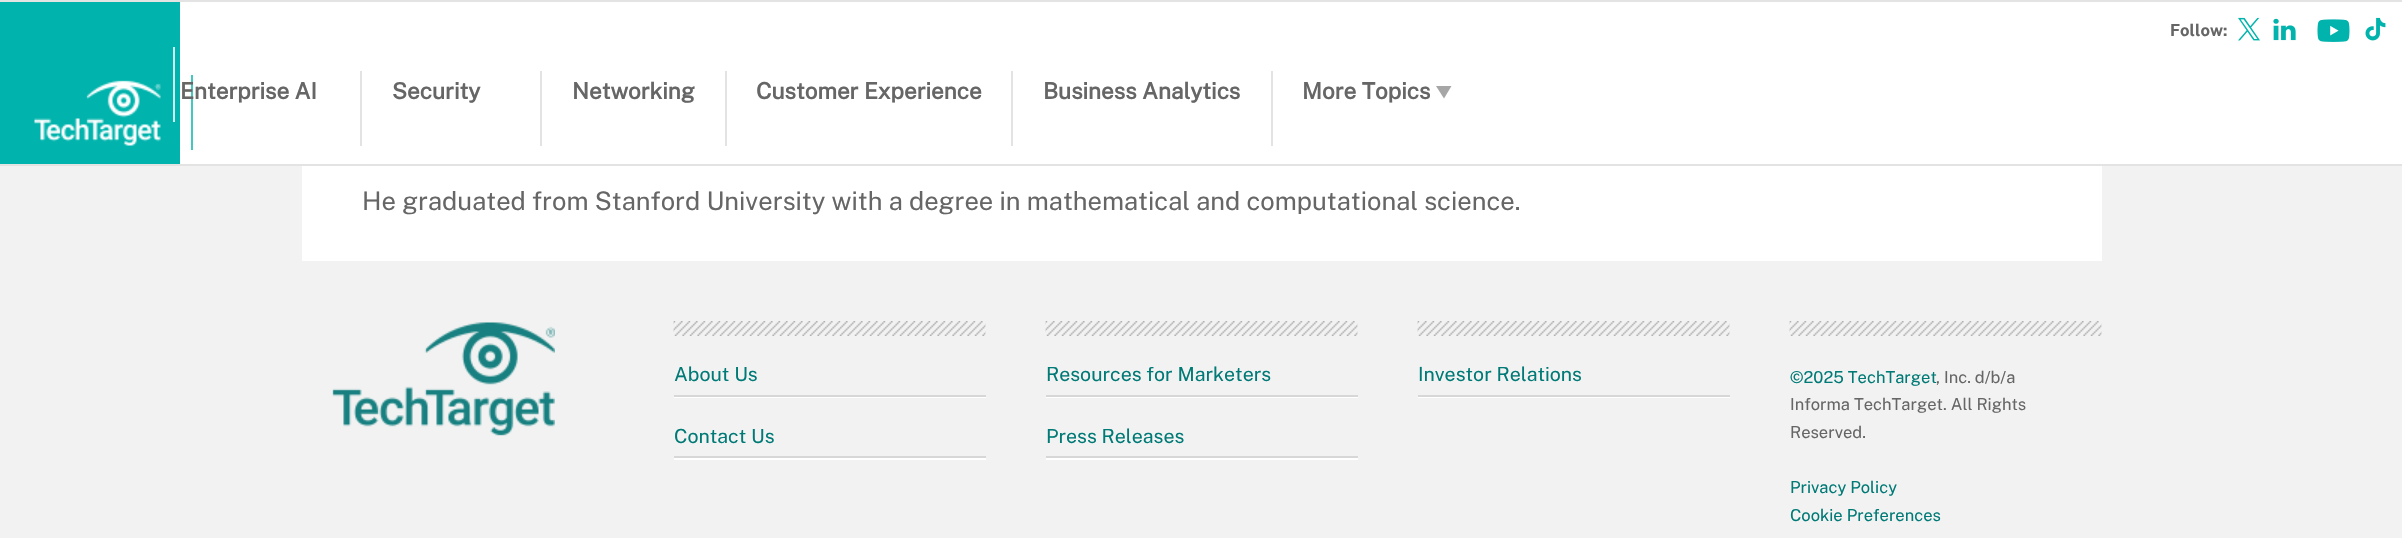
void draw(SkCanvas* canvas) {
	SkPaint paint;
	paint.setAntiAlias(true);
	auto svgPath = [&](const char* data, bool evenOdd = false) {
		SkPath result = *SkParsePath::FromSVGString(data);
		if (evenOdd) result.setFillType(SkPathFillType::kEvenOdd);
		return result;
	};
	canvas->clear(0xfff2f2f2);
	paint.setColor(0xff00b3ac);
	canvas->drawRect(SkRect::MakeXYWH(0, 2, 180, 162), paint);
	paint.setColor(0xffcef0ee);
	canvas->drawRect(SkRect::MakeXYWH(173, 47, 2, 75), paint);
	paint.setColor(0xffffffff);
	canvas->drawRect(SkRect::MakeXYWH(180, 2, 2222, 162), paint);
	paint.setColor(0xff42c7c1);
	canvas->drawRect(SkRect::MakeXYWH(191, 75, 2, 75), paint);
	canvas->drawImageRect(SkImages::DeferredFromEncodedData(SkData::MakeFromFileName("img1.png")), SkRect::MakeXYWH(34, 80, 127, 66), SkSamplingOptions());
	paint.setColor(0xffe3e3e3);
	canvas->drawRect(SkRect::MakeXYWH(0, 164, 2402, 2), paint);
	SkFont f1(fontMgr->matchFamilyStyle("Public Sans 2", SkFontStyle::Bold()), 16.5);
	f1.setSubpixel(true);
	paint.setColor(0xff666666);
	canvas->drawString("Follow:", 2170, 36, f1, paint);
	canvas->drawImageRect(SkImages::DeferredFromEncodedData(SkData::MakeFromFileName("img2.png")), SkRect::MakeXYWH(2238, 17, 22, 24), SkSamplingOptions());
	canvas->drawImageRect(SkImages::DeferredFromEncodedData(SkData::MakeFromFileName("img3.png")), SkRect::MakeXYWH(2273, 18, 23, 23), SkSamplingOptions());
	canvas->drawImageRect(SkImages::DeferredFromEncodedData(SkData::MakeFromFileName("img4.png")), SkRect::MakeXYWH(2317, 19, 33, 23), SkSamplingOptions());
	canvas->drawImageRect(SkImages::DeferredFromEncodedData(SkData::MakeFromFileName("img5.png")), SkRect::MakeXYWH(2365, 17, 21, 24), SkSamplingOptions());
	paint.setColor(0xffe3e3e3);
	canvas->drawRect(SkRect::MakeXYWH(0, 0, 2402, 2), paint);
	SkFont f2(fontMgr->matchFamilyStyle("Public Sans", SkFontStyle::Bold()), 22.5);
	f2.setSubpixel(true);
	paint.setColor(0xff666666);
	canvas->drawString("Enterprise AI", 180, 99, f2, paint);
	paint.setColor(0xffe3e3e3);
	canvas->drawRect(SkRect::MakeXYWH(360, 71, 2, 75), paint);
	paint.setColor(0xff666666);
	canvas->drawString("Security", 392, 99, f2, paint);
	paint.setColor(0xffe3e3e3);
	canvas->drawRect(SkRect::MakeXYWH(540, 71, 2, 75), paint);
	paint.setColor(0xff666666);
	canvas->drawString("Networking", 572, 99, f2, paint);
	paint.setColor(0xffe3e3e3);
	canvas->drawRect(SkRect::MakeXYWH(725, 71, 2, 75), paint);
	paint.setColor(0xff666666);
	canvas->drawString("Customer Experience", 756, 99, f2, paint);
	paint.setColor(0xffe3e3e3);
	canvas->drawRect(SkRect::MakeXYWH(1011, 71, 2, 75), paint);
	paint.setColor(0xff666666);
	canvas->drawString("Business Analytics", 1043, 99, f2, paint);
	paint.setColor(0xffe3e3e3);
	canvas->drawRect(SkRect::MakeXYWH(1271, 71, 2, 75), paint);
	paint.setColor(0xff666666);
	canvas->drawString("More Topics", 1302, 99, f2, paint);
	paint.setColor(0xffa6a6a6);
	canvas->drawPath(svgPath("M1451.5 86L1444 98.5L1436 86Z"), paint);
	paint.setColor(0xffffffff);
	canvas->drawRect(SkRect::MakeXYWH(302, 166, 1800, 95), paint);
	SkFont f3(fontMgr->matchFamilyStyle("Public Sans", SkFontStyle::Normal()), 25.5);
	f3.setSubpixel(true);
	paint.setColor(0xff666666);
	canvas->drawString("He graduated from Stanford University with a degree in mathematical and computational science.", 362, 210, f3, paint);
	canvas->drawImageRect(SkImages::DeferredFromEncodedData(SkData::MakeFromFileName("img6.png")), SkRect::MakeXYWH(332, 322, 223, 114), SkSamplingOptions());
	canvas->drawImageRect(SkImages::DeferredFromEncodedData(SkData::MakeFromFileName("img7.png")), SkRect::MakeXYWH(673, 321, 313, 15), SkSamplingOptions());
	paint.setColor(0xffffffff);
	canvas->drawRect(SkRect::MakeXYWH(674, 397, 312, 1), paint);
	SkFont f4(fontMgr->matchFamilyStyle("Public Sans", SkFontStyle::Normal()), 19.5);
	f4.setSubpixel(true);
	paint.setColor(0xff007a76);
	canvas->drawString("About Us", 674, 381, f4, paint);
	paint.setColor(0xffd7d7d7);
	canvas->drawRect(SkRect::MakeXYWH(674, 395, 312, 2), paint);
	paint.setColor(0xffffffff);
	canvas->drawRect(SkRect::MakeXYWH(674, 458, 312, 2), paint);
	paint.setColor(0xff007a76);
	canvas->drawString("Contact Us", 674, 443, f4, paint);
	paint.setColor(0xffd7d7d7);
	canvas->drawRect(SkRect::MakeXYWH(674, 456, 312, 2), paint);
	canvas->drawImageRect(SkImages::DeferredFromEncodedData(SkData::MakeFromFileName("img8.png")), SkRect::MakeXYWH(1045, 321, 313, 15), SkSamplingOptions());
	paint.setColor(0xffffffff);
	canvas->drawRect(SkRect::MakeXYWH(1046, 397, 312, 1), paint);
	paint.setColor(0xff007a76);
	canvas->drawString("Resources for Marketers", 1046, 381, f4, paint);
	paint.setColor(0xffd7d7d7);
	canvas->drawRect(SkRect::MakeXYWH(1046, 395, 312, 2), paint);
	paint.setColor(0xffffffff);
	canvas->drawRect(SkRect::MakeXYWH(1046, 458, 312, 2), paint);
	paint.setColor(0xff007a76);
	canvas->drawString("Press Releases", 1046, 443, f4, paint);
	paint.setColor(0xffd7d7d7);
	canvas->drawRect(SkRect::MakeXYWH(1046, 456, 312, 2), paint);
	canvas->drawImageRect(SkImages::DeferredFromEncodedData(SkData::MakeFromFileName("img9.png")), SkRect::MakeXYWH(1417, 321, 313, 15), SkSamplingOptions());
	paint.setColor(0xffffffff);
	canvas->drawRect(SkRect::MakeXYWH(1418, 397, 312, 1), paint);
	paint.setColor(0xff007a76);
	canvas->drawString("Investor Relations", 1418, 381, f4, paint);
	paint.setColor(0xffd7d7d7);
	canvas->drawRect(SkRect::MakeXYWH(1418, 395, 312, 2), paint);
	canvas->drawImageRect(SkImages::DeferredFromEncodedData(SkData::MakeFromFileName("img10.png")), SkRect::MakeXYWH(1789, 321, 313, 15), SkSamplingOptions());
	SkFont f5(fontMgr->matchFamilyStyle("Public Sans", SkFontStyle::Normal()), 16.5);
	f5.setSubpixel(true);
	paint.setColor(0xff007a76);
	canvas->drawString("©2025 TechTarget", 1790, 383, f5, paint);
	paint.setColor(0xff666666);
	canvas->drawString(", Inc. d/b/a", 1936, 383, f5, paint);
	canvas->drawString("Informa TechTarget. All Rights", 1790, 410, f5, paint);
	canvas->drawString("Reserved.", 1790, 438, f5, paint);
	paint.setColor(0xff007a76);
	canvas->drawString("Privacy Policy", 1790, 493, f5, paint);
	canvas->drawString("Cookie Preferences", 1790, 521, f5, paint);
}
